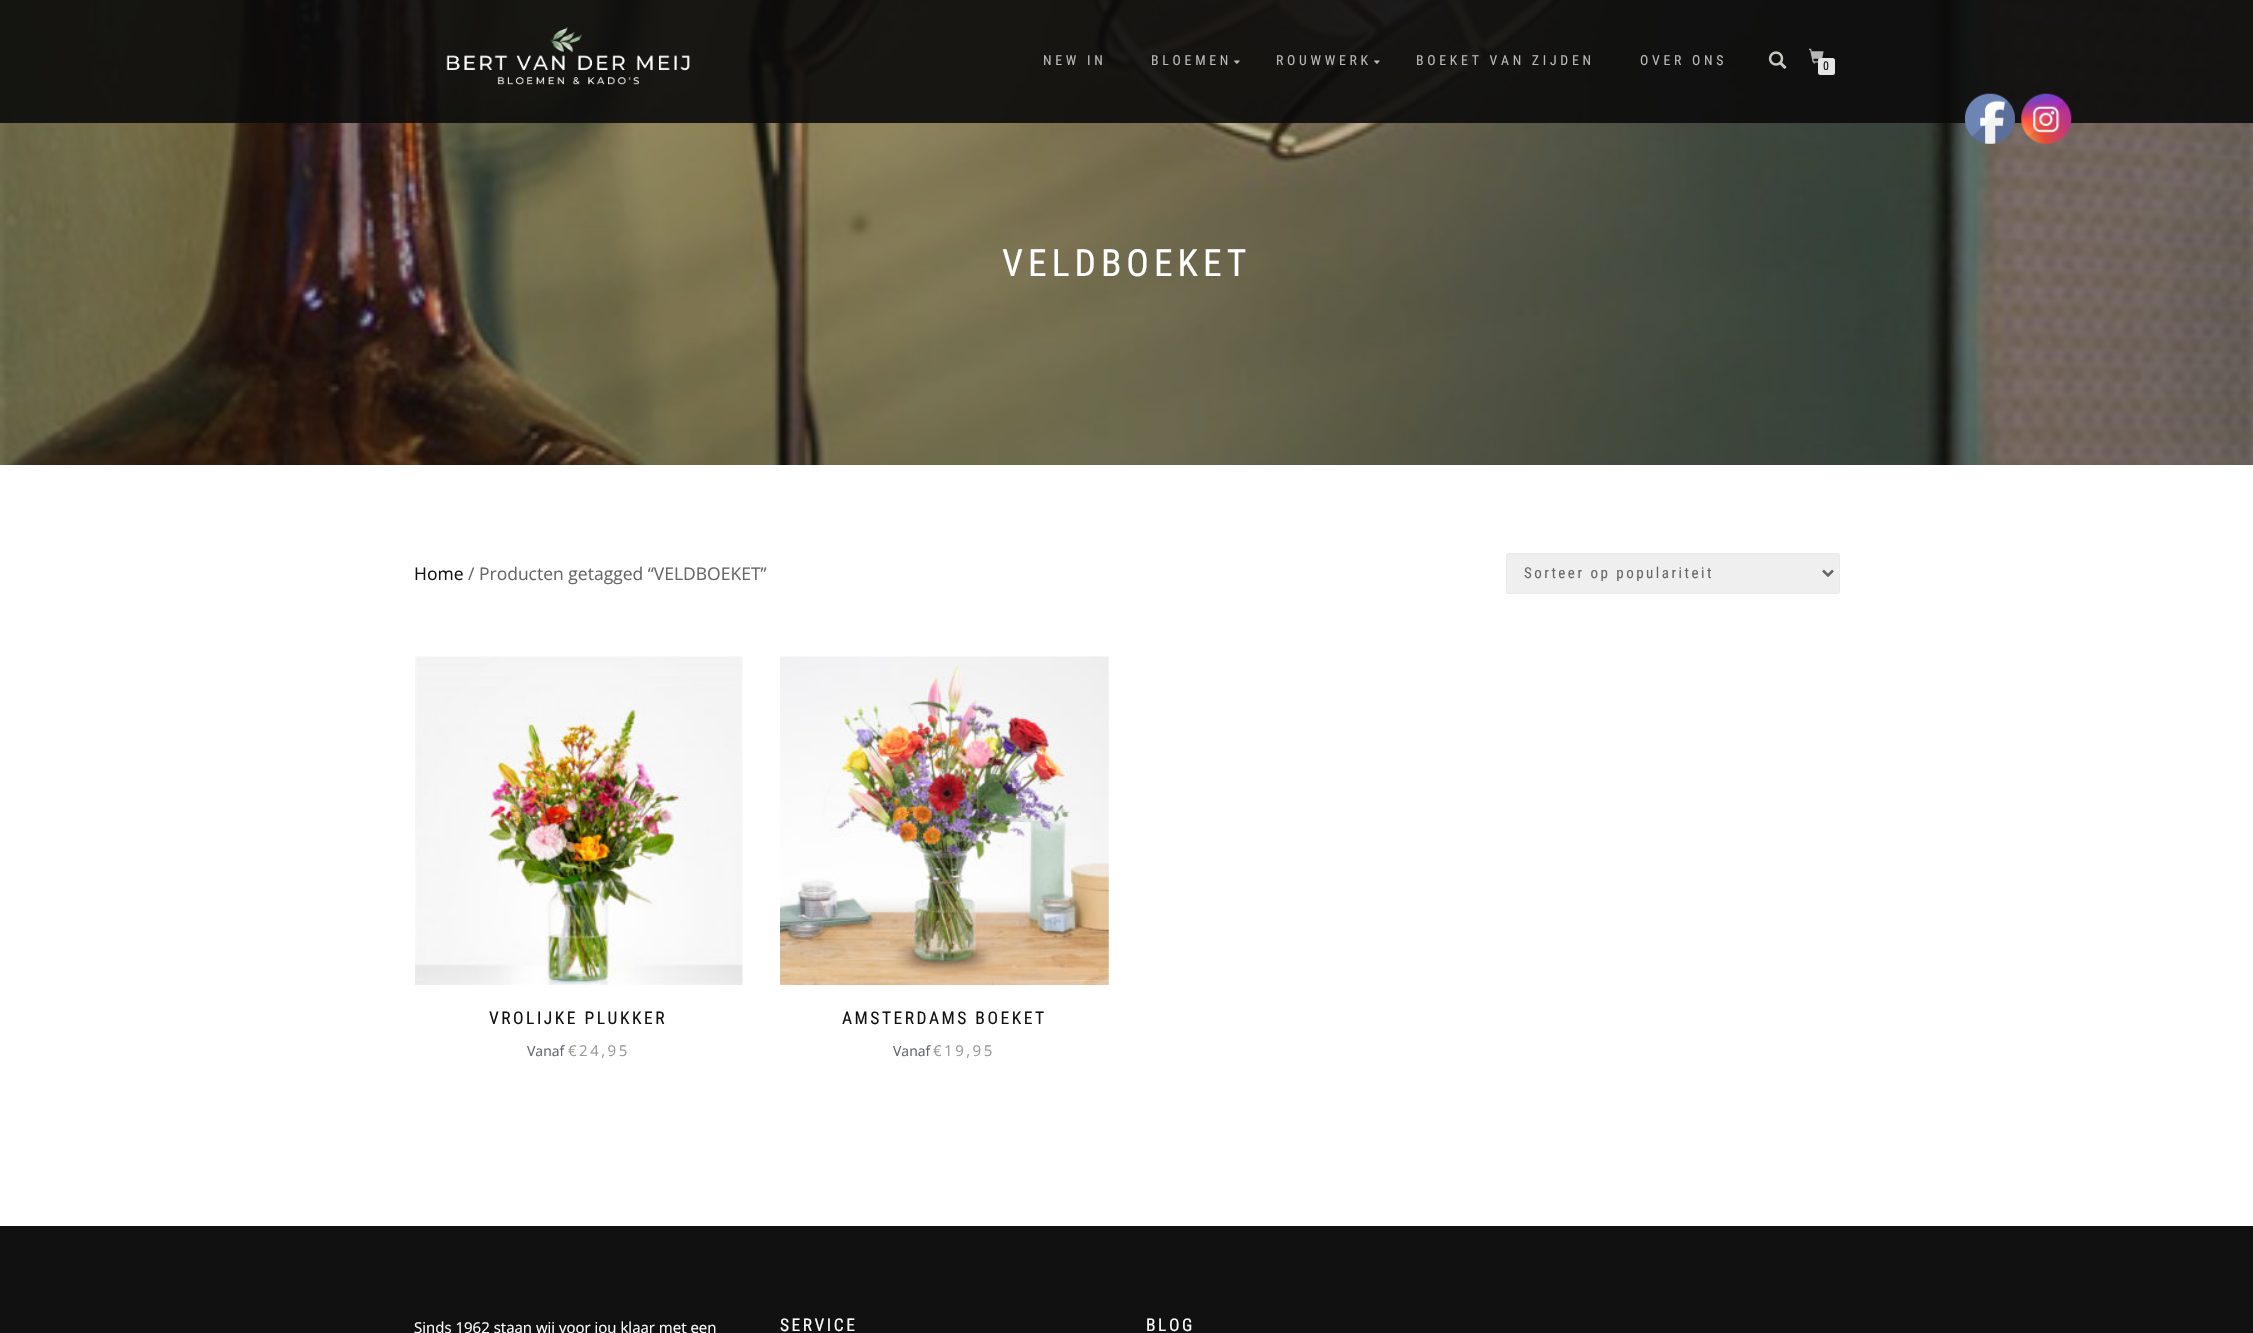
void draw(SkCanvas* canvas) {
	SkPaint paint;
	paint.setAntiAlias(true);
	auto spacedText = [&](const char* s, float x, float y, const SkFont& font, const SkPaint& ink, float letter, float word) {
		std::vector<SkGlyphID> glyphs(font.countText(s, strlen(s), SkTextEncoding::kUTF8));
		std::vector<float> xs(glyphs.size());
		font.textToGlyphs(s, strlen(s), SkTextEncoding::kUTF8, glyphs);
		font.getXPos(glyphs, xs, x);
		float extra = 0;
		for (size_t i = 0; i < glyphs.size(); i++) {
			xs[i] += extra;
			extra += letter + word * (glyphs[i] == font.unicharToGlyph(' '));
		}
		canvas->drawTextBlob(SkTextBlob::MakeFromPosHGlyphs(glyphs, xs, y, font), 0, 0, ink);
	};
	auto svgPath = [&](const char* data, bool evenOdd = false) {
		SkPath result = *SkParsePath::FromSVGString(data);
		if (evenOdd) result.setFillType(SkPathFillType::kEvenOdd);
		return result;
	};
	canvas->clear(0xffffffff);
	canvas->drawImageRect(SkImages::DeferredFromEncodedData(SkData::MakeFromFileName("img8.png")), SkRect::MakeXYWH(0, 0, 2253, 465), SkSamplingOptions());
	paint.setColor(0xe60a0a0a);
	canvas->drawRect(SkRect::MakeXYWH(0, 0, 2253, 123), paint);
	canvas->drawImageRect(SkImages::DeferredFromEncodedData(SkData::MakeFromFileName("img1.png")), SkRect::MakeXYWH(446, 27, 244, 58), SkSamplingOptions());
	SkFont f1(fontMgr->matchFamilyStyle("Roboto Condensed", SkFontStyle::Normal()), 13.75);
	f1.setSubpixel(true);
	paint.setColor(0xffb9b9b8);
	spacedText("NEW IN", 1043, 65, f1, paint, 3.75, 0);
	spacedText("BLOEMEN", 1151, 65, f1, paint, 3.75, 0);
	canvas->drawImageRect(SkImages::DeferredFromEncodedData(SkData::MakeFromFileName("img2.png")), SkRect::MakeXYWH(1234, 60, 6, 4), SkSamplingOptions());
	spacedText("ROUWWERK", 1276, 65, f1, paint, 3.75, 0);
	canvas->drawImageRect(SkImages::DeferredFromEncodedData(SkData::MakeFromFileName("img3.png")), SkRect::MakeXYWH(1374, 60, 6, 4), SkSamplingOptions());
	spacedText("BOEKET VAN ZIJDEN", 1416, 65, f1, paint, 3.75, 0);
	spacedText("OVER ONS", 1640, 65, f1, paint, 3.75, 0);
	canvas->drawImageRect(SkImages::DeferredFromEncodedData(SkData::MakeFromFileName("img4.png")), SkRect::MakeXYWH(1768, 51, 19, 18), SkSamplingOptions());
	canvas->drawImageRect(SkImages::DeferredFromEncodedData(SkData::MakeFromFileName("img5.png")), SkRect::MakeXYWH(1808, 48, 16, 16), SkSamplingOptions());
	paint.setColor(0xffe5e5e5);
	canvas->drawRoundRect(SkRect::MakeXYWH(1818, 58, 17, 17), 2.5, 2.5, paint);
	SkFont f2(fontMgr->matchFamilyStyle("Roboto Condensed", SkFontStyle::Normal()), 12);
	f2.setSubpixel(true);
	paint.setColor(0xff111111);
	canvas->drawString("0", 1823, 70, f2, paint);
	canvas->drawImageRect(SkImages::DeferredFromEncodedData(SkData::MakeFromFileName("img6.png")), SkRect::MakeXYWH(1965, 93, 50, 51), SkSamplingOptions());
	canvas->drawImageRect(SkImages::DeferredFromEncodedData(SkData::MakeFromFileName("img7.png")), SkRect::MakeXYWH(2021, 93, 51, 51), SkSamplingOptions());
	SkFont f3(fontMgr->matchFamilyStyle("Roboto Condensed", SkFontStyle::Normal()), 37.5);
	f3.setSubpixel(true);
	paint.setColor(0xffffffff);
	spacedText("VELDBOEKET", 1002, 276, f3, paint, 5, 0);
	SkFont f4(fontMgr->matchFamilyStyle("Open Sans", SkFontStyle::Normal()), 17.5);
	f4.setSubpixel(true);
	paint.setColor(0xff111111);
	canvas->drawString("Home", 414, 580, f4, paint);
	paint.setColor(0xff666666);
	canvas->drawString("/ Producten getagged “VELDBOEKET”", 468, 580, f4, paint);
	paint.setColor(0xffefefef);
	canvas->drawRoundRect(SkRect::MakeXYWH(1506.5, 553.5, 333, 40), 2, 2, paint);
	paint.setStroke(true);
	paint.setStrokeWidth(1);
	paint.setColor(0xffeaeaea);
	canvas->drawRoundRect(SkRect::MakeXYWH(1506.5, 553.5, 333, 40), 2, 2, paint);
	paint.setStrokeWidth(2.5);
	paint.setColor(0xff666666);
	canvas->drawPath(svgPath("M1823 570.5L1828 575.5L1833 570.5"), paint);
	SkFont f5(fontMgr->matchFamilyStyle("Roboto Condensed", SkFontStyle::Normal()), 15);
	f5.setSubpixel(true);
	paint.setStroke(false);
	spacedText("Sorteer op populariteit", 1524, 578, f5, paint, 2.5, 0);
	canvas->drawImageRect(SkImages::DeferredFromEncodedData(SkData::MakeFromFileName("img9.png")), SkRect::MakeXYWH(415, 656, 328, 329), SkSamplingOptions());
	SkFont f6(fontMgr->matchFamilyStyle("Roboto Condensed", SkFontStyle::Normal()), 17.5);
	f6.setSubpixel(true);
	paint.setColor(0xff111111);
	spacedText("VROLIJKE PLUKKER", 489, 1024, f6, paint, 2.5, 0);
	SkFont f7(fontMgr->matchFamilyStyle("Open Sans", SkFontStyle::Normal()), 14);
	f7.setSubpixel(true);
	paint.setColor(0xff60646c);
	canvas->drawString("Vanaf", 527, 1056, f7, paint);
	SkFont f8(fontMgr->matchFamilyStyle("Open Sans", SkFontStyle::Normal()), 15);
	f8.setSubpixel(true);
	paint.setColor(0xff999999);
	spacedText("€24,95", 568, 1056, f8, paint, 2.5, 0);
	canvas->drawImageRect(SkImages::DeferredFromEncodedData(SkData::MakeFromFileName("img10.png")), SkRect::MakeXYWH(780, 656, 329, 329), SkSamplingOptions());
	paint.setColor(0xff111111);
	spacedText("AMSTERDAMS BOEKET", 842, 1024, f6, paint, 2.5, 0);
	paint.setColor(0xff60646c);
	canvas->drawString("Vanaf", 893, 1056, f7, paint);
	paint.setColor(0xff999999);
	spacedText("€19,95", 933, 1056, f8, paint, 2.5, 0);
	paint.setColor(0xff111111);
	canvas->drawRect(SkRect::MakeXYWH(0, 1226, 2253, 107), paint);
	paint.setColor(0xffffffff);
	canvas->drawString("Sinds 1962 staan wij voor jou klaar met een", 414, 1333, f8, paint);
	spacedText("SERVICE", 780, 1331, f6, paint, 2.5, 0);
	spacedText("BLOG", 1146, 1331, f6, paint, 2.5, 0);
}
